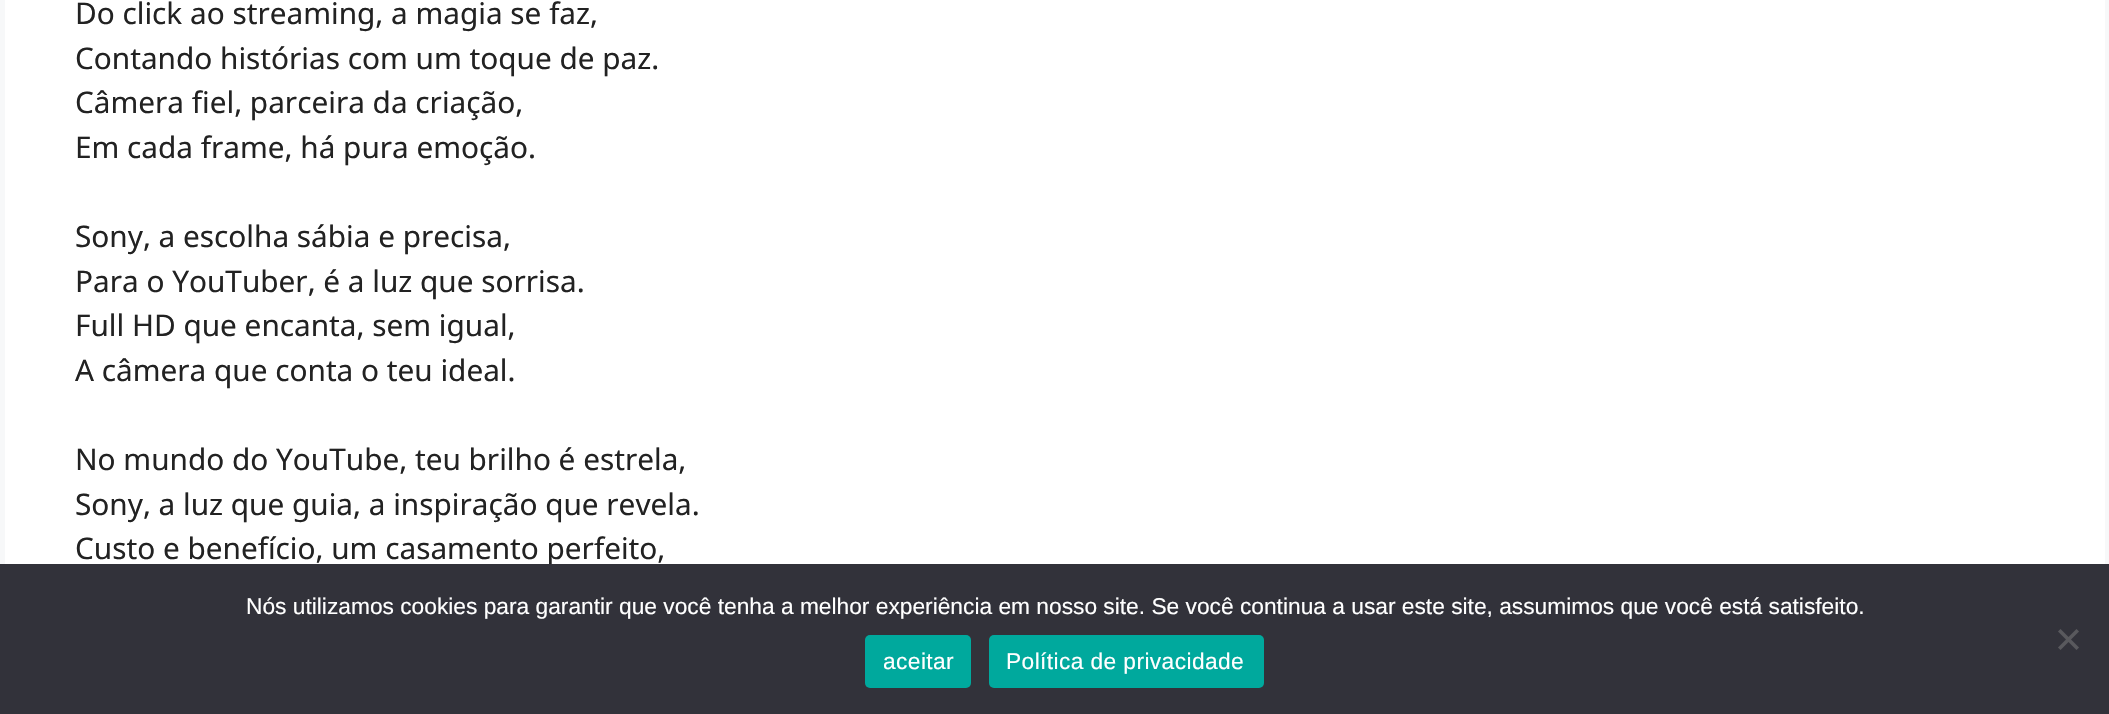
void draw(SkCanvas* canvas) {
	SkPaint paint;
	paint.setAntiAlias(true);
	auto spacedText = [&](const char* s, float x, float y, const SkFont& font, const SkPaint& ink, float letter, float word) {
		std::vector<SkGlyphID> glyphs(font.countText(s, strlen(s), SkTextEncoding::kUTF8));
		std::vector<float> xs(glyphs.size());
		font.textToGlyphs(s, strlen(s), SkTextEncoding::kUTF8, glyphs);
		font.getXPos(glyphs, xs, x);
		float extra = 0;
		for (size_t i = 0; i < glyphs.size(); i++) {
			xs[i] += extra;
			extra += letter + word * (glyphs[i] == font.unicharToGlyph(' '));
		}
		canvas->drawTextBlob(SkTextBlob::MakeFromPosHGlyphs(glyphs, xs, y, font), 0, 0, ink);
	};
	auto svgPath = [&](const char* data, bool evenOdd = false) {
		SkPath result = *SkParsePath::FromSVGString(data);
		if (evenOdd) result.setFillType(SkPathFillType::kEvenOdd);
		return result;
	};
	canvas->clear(0xfff7f8f9);
	paint.setColor(0xffffffff);
	canvas->drawRect(SkRect::MakeXYWH(5, 0, 2100, 564), paint);
	SkFont f1(fontMgr->matchFamilyStyle("Noto Sans", SkFontStyle::Normal()), 29.75);
	f1.setSubpixel(true);
	paint.setColor(0xff222222);
	canvas->drawString("Do click ao streaming, a magia se faz,", 75, 24, f1, paint);
	canvas->drawString("Contando histórias com um toque de paz.", 75, 69, f1, paint);
	canvas->drawString("Câmera fiel, parceira da criação,", 75, 113, f1, paint);
	canvas->drawString("Em cada frame, há pura emoção.", 75, 158, f1, paint);
	canvas->drawString("Sony, a escolha sábia e precisa,", 75, 247, f1, paint);
	canvas->drawString("Para o YouTuber, é a luz que sorrisa.", 75, 292, f1, paint);
	canvas->drawString("Full HD que encanta, sem igual,", 75, 336, f1, paint);
	canvas->drawString("A câmera que conta o teu ideal.", 75, 381, f1, paint);
	canvas->drawString("No mundo do YouTube, teu brilho é estrela,", 75, 470, f1, paint);
	canvas->drawString("Sony, a luz que guia, a inspiração que revela.", 75, 515, f1, paint);
	canvas->drawString("Custo e benefício, um casamento perfeito,", 75, 559, f1, paint);
	paint.setColor(0xff32323a);
	canvas->drawRect(SkRect::MakeXYWH(0, 564, 2109, 150), paint);
	SkFont f2(fontMgr->matchFamilyStyle("Liberation Sans", SkFontStyle::Normal()), 22.75);
	f2.setSubpixel(true);
	paint.setColor(0xffffffff);
	canvas->drawString("Nós utilizamos cookies para garantir que você tenha a melhor experiência em nosso site. Se você continua a usar este site, assumimos que você está satisfeito.", 246, 614, f2, paint);
	paint.setColor(0xff59595d);
	canvas->drawPath(svgPath("M2076.5 629L2079 631.5L2060.5 650L2058 647.5Z"), paint);
	canvas->drawPath(svgPath("M2058 631.5L2060.5 629L2079 647.5L2076.5 650Z"), paint);
	paint.setColor(0xff00a99d);
	canvas->drawRoundRect(SkRect::MakeXYWH(865, 635, 106, 53), 5, 5, paint);
	paint.setColor(0xffffffff);
	spacedText("aceitar", 883, 669, f2, paint, 0.4, 0);
	paint.setColor(0xff00a99d);
	canvas->drawRoundRect(SkRect::MakeXYWH(989, 635, 275, 53), 5, 5, paint);
	paint.setColor(0xffffffff);
	spacedText("Política de privacidade", 1006, 669, f2, paint, 0.4, 0);
}
